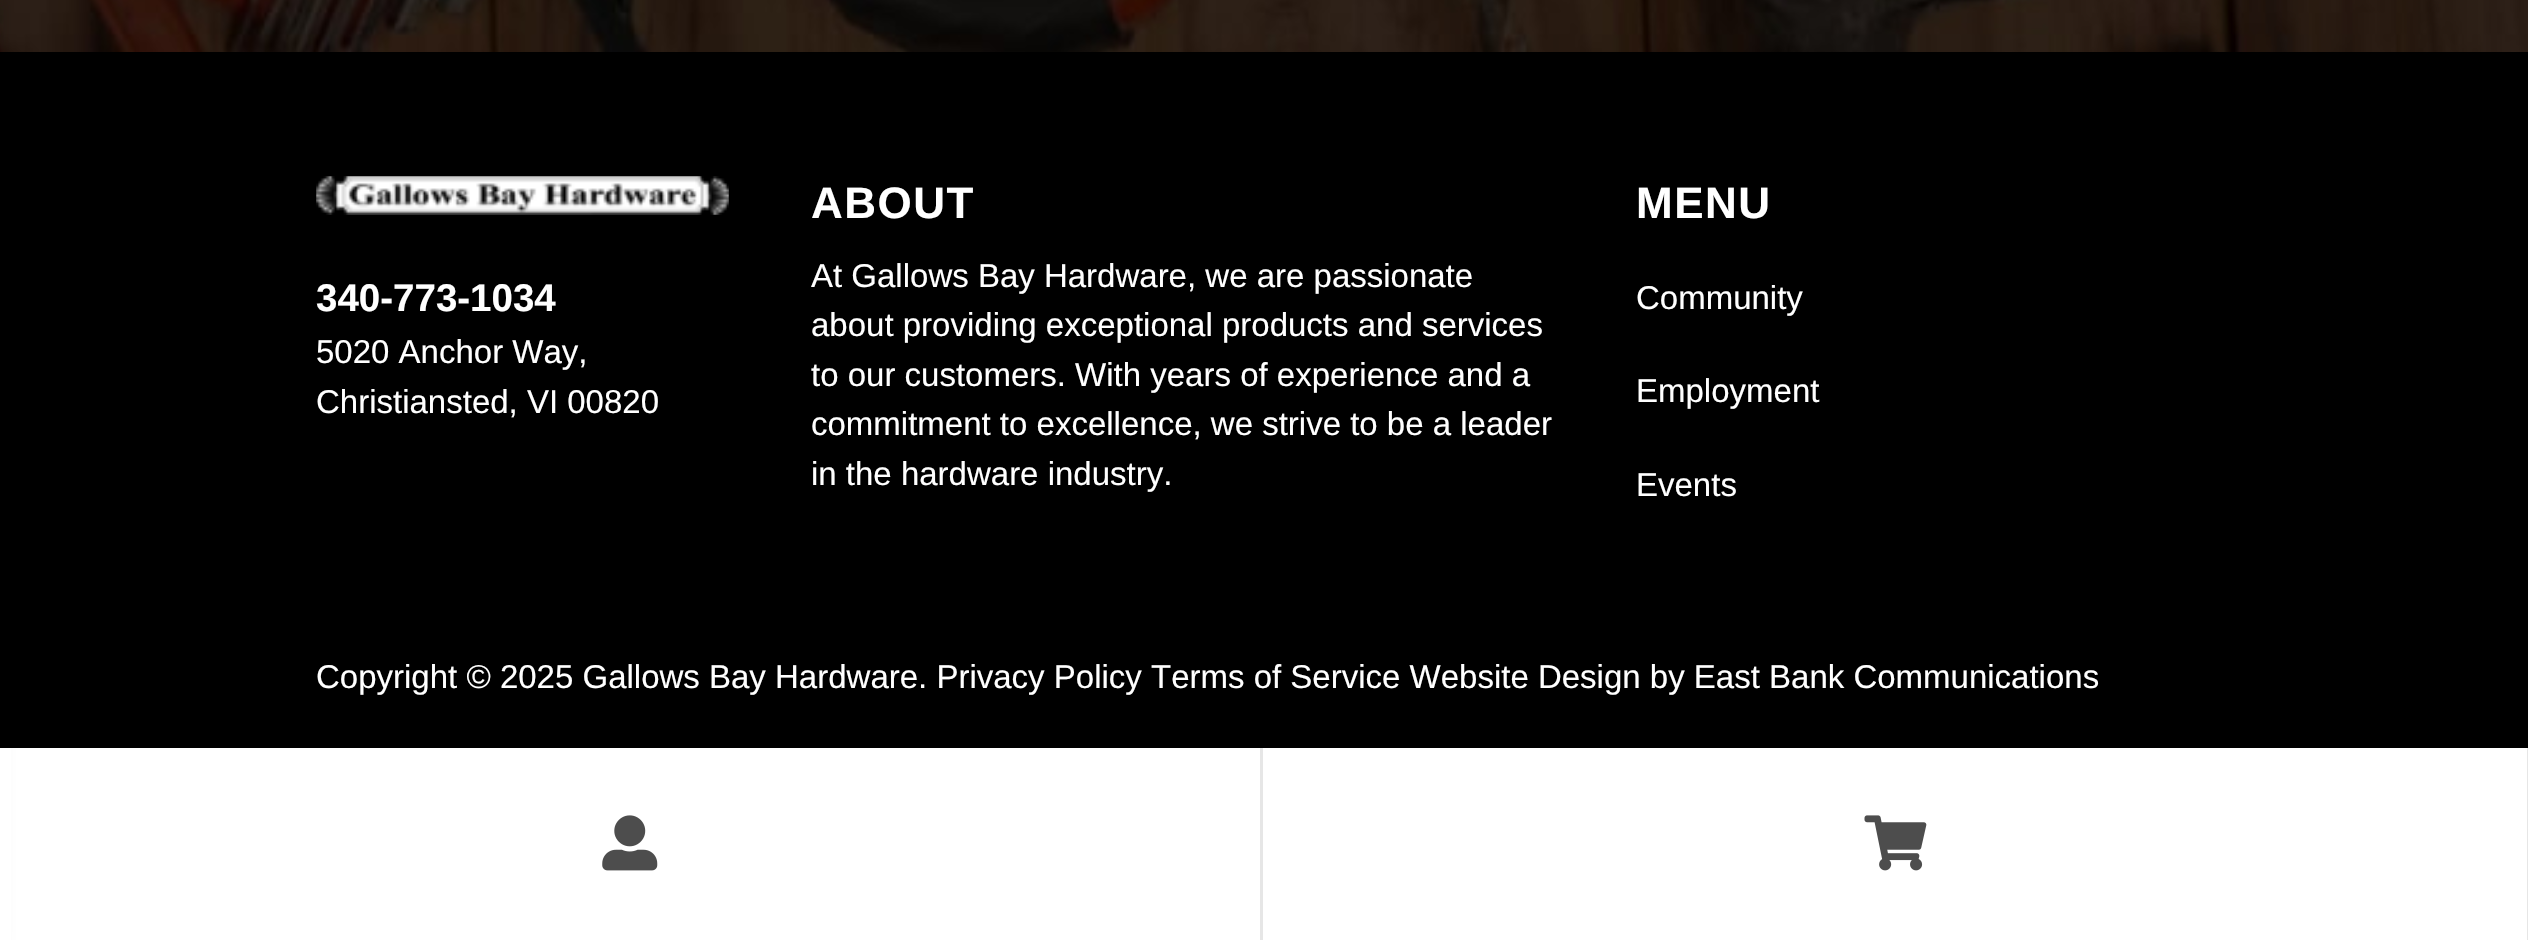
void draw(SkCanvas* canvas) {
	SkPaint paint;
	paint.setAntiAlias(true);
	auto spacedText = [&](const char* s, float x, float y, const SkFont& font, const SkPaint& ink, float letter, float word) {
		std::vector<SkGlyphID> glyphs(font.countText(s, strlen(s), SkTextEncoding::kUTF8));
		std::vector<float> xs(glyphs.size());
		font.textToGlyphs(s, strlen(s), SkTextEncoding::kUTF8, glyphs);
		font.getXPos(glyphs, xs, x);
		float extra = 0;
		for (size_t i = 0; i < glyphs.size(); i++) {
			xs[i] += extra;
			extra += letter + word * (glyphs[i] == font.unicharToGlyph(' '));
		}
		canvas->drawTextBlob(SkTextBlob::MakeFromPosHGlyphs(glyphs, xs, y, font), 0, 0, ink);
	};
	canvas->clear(0xffffffff);
	canvas->drawImageRect(SkImages::DeferredFromEncodedData(SkData::MakeFromFileName("img1.png")), SkRect::MakeXYWH(0, 0, 2528, 52), SkSamplingOptions());
	paint.setColor(0xff000000);
	canvas->drawRect(SkRect::MakeXYWH(0, 52, 2528, 696), paint);
	paint.setColor(0x33000000);
	paint.setMaskFilter(SkMaskFilter::MakeBlur(kNormal_SkBlurStyle, 7));
	canvas->drawRect(SkRect::MakeXYWH(-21, 0, 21, 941), paint);
	paint.setMaskFilter(nullptr);
	canvas->drawImageRect(SkImages::DeferredFromEncodedData(SkData::MakeFromFileName("img2.png")), SkRect::MakeXYWH(316, 176, 413, 39), SkSamplingOptions());
	SkFont f1(fontMgr->matchFamilyStyle("Liberation Sans", SkFontStyle::Bold()), 38.5);
	f1.setSubpixel(true);
	paint.setColor(0xffffffff);
	canvas->drawString("340-773-1034", 316, 311, f1, paint);
	SkFont f2(fontMgr->matchFamilyStyle("Liberation Sans", SkFontStyle::Normal()), 33);
	f2.setSubpixel(true);
	canvas->drawString("5020 Anchor Way,", 316, 363, f2, paint);
	canvas->drawString("Christiansted, VI 00820", 316, 413, f2, paint);
	SkFont f3(fontMgr->matchFamilyStyle("Liberation Sans", SkFontStyle::Bold()), 44);
	f3.setSubpixel(true);
	spacedText("ABOUT", 811, 218, f3, paint, 1.5, 0);
	canvas->drawString("At Gallows Bay Hardware, we are passionate", 811, 287, f2, paint);
	canvas->drawString("about providing exceptional products and services", 811, 336, f2, paint);
	canvas->drawString("to our customers. With years of experience and a", 811, 386, f2, paint);
	canvas->drawString("commitment to excellence, we strive to be a leader", 811, 435, f2, paint);
	canvas->drawString("in the hardware industry.", 811, 485, f2, paint);
	spacedText("MENU", 1636, 218, f3, paint, 1.5, 0);
	canvas->drawString("Community", 1636, 309, f2, paint);
	canvas->drawString("Employment", 1636, 402, f2, paint);
	canvas->drawString("Events", 1636, 496, f2, paint);
	canvas->drawString("Copyright © 2025 Gallows Bay Hardware. Privacy Policy Terms of Service Website Design by East Bank Communications", 316, 688, f2, paint);
	canvas->drawRect(SkRect::MakeXYWH(0, 748, 11, 192), paint);
	paint.setColor(0xffe6e6e6);
	canvas->drawRect(SkRect::MakeXYWH(1260, 748, 3, 192), paint);
	canvas->drawImageRect(SkImages::DeferredFromEncodedData(SkData::MakeFromFileName("img3.png")), SkRect::MakeXYWH(602, 815, 56, 56), SkSamplingOptions());
	canvas->drawRect(SkRect::MakeXYWH(2527, 748, 1, 192), paint);
	canvas->drawImageRect(SkImages::DeferredFromEncodedData(SkData::MakeFromFileName("img4.png")), SkRect::MakeXYWH(1864, 815, 63, 56), SkSamplingOptions());
}
